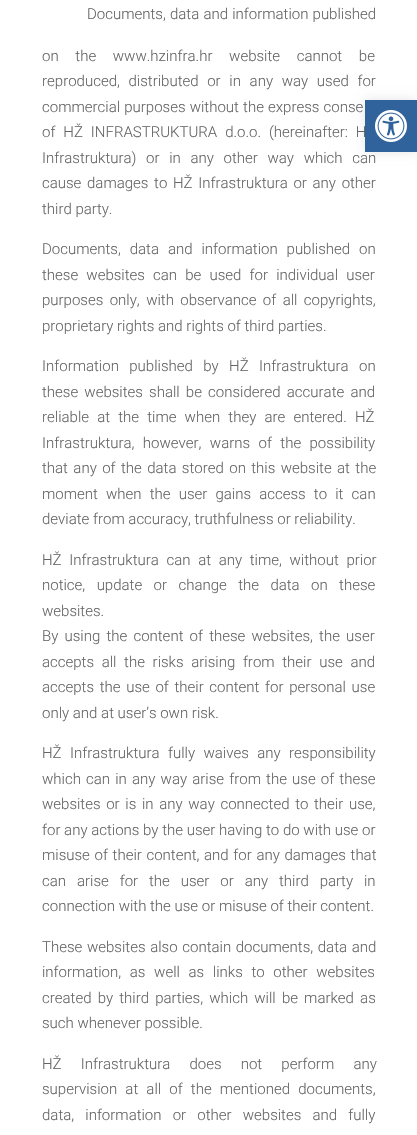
void draw(SkCanvas* canvas) {
	SkPaint paint;
	paint.setAntiAlias(true);
	auto spacedText = [&](const char* s, float x, float y, const SkFont& font, const SkPaint& ink, float letter, float word) {
		std::vector<SkGlyphID> glyphs(font.countText(s, strlen(s), SkTextEncoding::kUTF8));
		std::vector<float> xs(glyphs.size());
		font.textToGlyphs(s, strlen(s), SkTextEncoding::kUTF8, glyphs);
		font.getXPos(glyphs, xs, x);
		float extra = 0;
		for (size_t i = 0; i < glyphs.size(); i++) {
			xs[i] += extra;
			extra += letter + word * (glyphs[i] == font.unicharToGlyph(' '));
		}
		canvas->drawTextBlob(SkTextBlob::MakeFromPosHGlyphs(glyphs, xs, y, font), 0, 0, ink);
	};
	canvas->clear(0xffffffff);
	SkFont f1(fontMgr->matchFamilyStyle("Roboto", SkFontStyle(300, SkFontStyle::kNormal_Width, SkFontStyle::kUpright_Slant)), 15);
	f1.setSubpixel(true);
	paint.setColor(0xff666666);
	spacedText("Documents, data and information published", 87, 19, f1, paint, 0, 0.5);
	spacedText("on the www.hzinfra.hr website cannot be", 42, 61, f1, paint, 0, 13);
	spacedText("reproduced, distributed or in any way used for", 42, 86, f1, paint, 0, 5);
	spacedText("commercial purposes without the express conse", 42, 112, f1, paint, 0, 0.5);
	spacedText("of HŽ INFRASTRUKTURA d.o.o. (hereinafter: H", 42, 137, f1, paint, 0, 4.25);
	spacedText("Infrastruktura) or in any other way which can", 42, 163, f1, paint, 0, 6);
	spacedText("cause damages to HŽ Infrastruktura or any other", 42, 188, f1, paint, 0, 2);
	canvas->drawString("third party.", 42, 214, f1, paint);
	spacedText("Documents, data and information published on", 42, 254, f1, paint, 0, 5.25);
	spacedText("these websites can be used for individual user", 42, 280, f1, paint, 0, 4.5);
	spacedText("purposes only, with observance of all copyrights,", 42, 305, f1, paint, 0, 2.75);
	canvas->drawString("proprietary rights and rights of third parties.", 42, 331, f1, paint);
	spacedText("Information published by HŽ Infrastruktura on", 42, 371, f1, paint, 0, 6.75);
	spacedText("these websites shall be considered accurate and", 42, 397, f1, paint, 0, 2.5);
	spacedText("reliable at the time when they are entered. HŽ", 42, 422, f1, paint, 0, 4.5);
	spacedText("Infrastruktura, however, warns of the possibility", 42, 448, f1, paint, 0, 4.75);
	spacedText("that any of the data stored on this website at the", 42, 473, f1, paint, 0, 1.75);
	spacedText("moment when the user gains access to it can", 42, 499, f1, paint, 0, 4.5);
	canvas->drawString("deviate from accuracy, truthfulness or reliability.", 42, 524, f1, paint);
	spacedText("HŽ Infrastruktura can at any time, without prior", 42, 565, f1, paint, 0, 4);
	spacedText("notice, update or change the data on these", 42, 590, f1, paint, 0, 7.75);
	canvas->drawString("websites.", 42, 616, f1, paint);
	spacedText("By using the content of these websites, the user", 42, 641, f1, paint, 0, 2.5);
	spacedText("accepts all the risks arising from their use and", 42, 667, f1, paint, 0, 4);
	spacedText("accepts the use of their content for personal use", 42, 692, f1, paint, 0, 2);
	canvas->drawString("only and at user’s own risk.", 42, 718, f1, paint);
	spacedText("HŽ Infrastruktura fully waives any responsibility", 42, 758, f1, paint, 0, 4.75);
	spacedText("which can in any way arise from the use of these", 42, 784, f1, paint, 0, 1.5);
	spacedText("websites or is in any way connected to their use,", 42, 809, f1, paint, 0, 2);
	canvas->drawString("for any actions by the user having to do with use or", 42, 835, f1, paint);
	spacedText("misuse of their content, and for any damages that", 42, 860, f1, paint, 0, 1);
	spacedText("can arise for the user or any third party in", 42, 886, f1, paint, 0, 7.25);
	canvas->drawString("connection with the use or misuse of their content.", 42, 911, f1, paint);
	spacedText("These websites also contain documents, data and", 42, 952, f1, paint, 0, 1);
	spacedText("information, as well as links to other websites", 42, 977, f1, paint, 0, 5);
	spacedText("created by third parties, which will be marked as", 42, 1003, f1, paint, 0, 2.5);
	canvas->drawString("such whenever possible.", 42, 1028, f1, paint);
	spacedText("HŽ Infrastruktura does not perform any", 42, 1069, f1, paint, 0, 15.5);
	spacedText("supervision at all of the mentioned documents,", 42, 1094, f1, paint, 0, 4.5);
	spacedText("data, information or other websites and fully", 42, 1120, f1, paint, 0, 7.5);
	paint.setColor(0x1a000000);
	paint.setMaskFilter(SkMaskFilter::MakeBlur(kNormal_SkBlurStyle, 5));
	canvas->drawRect(SkRect::MakeXYWH(365, 100, 52, 52), paint);
	paint.setMaskFilter(nullptr);
	paint.setColor(0xff30639b);
	canvas->drawRect(SkRect::MakeXYWH(365, 100, 52, 52), paint);
	canvas->drawImageRect(SkImages::DeferredFromEncodedData(SkData::MakeFromFileName("img1.png")), SkRect::MakeXYWH(375, 110, 32, 32), SkSamplingOptions());
}
